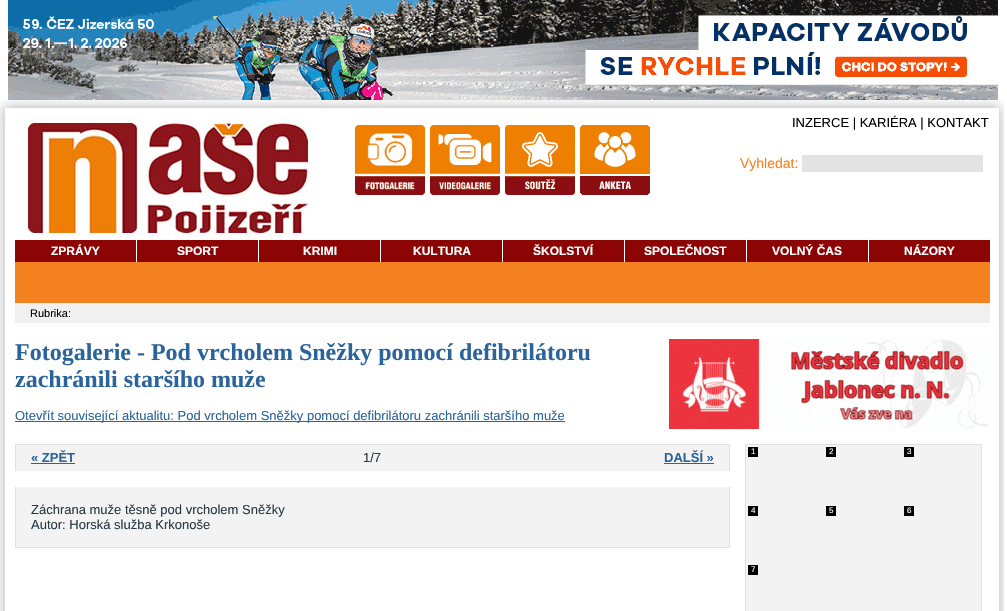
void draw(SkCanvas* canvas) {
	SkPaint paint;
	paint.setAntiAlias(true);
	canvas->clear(0xffffffff);
	canvas->drawImageRect(SkImages::DeferredFromEncodedData(SkData::MakeFromFileName("img1.png")), SkRect::MakeXYWH(8, 0, 990, 100), SkSamplingOptions());
	canvas->drawImageRect(SkImages::DeferredFromEncodedData(SkData::MakeFromFileName("img2.png")), SkRect::MakeXYWH(0, 324, 1004, 287), SkSamplingOptions());
	canvas->drawImageRect(SkImages::DeferredFromEncodedData(SkData::MakeFromFileName("img3.png")), SkRect::MakeXYWH(0, 100, 1004, 224), SkSamplingOptions());
	canvas->drawImageRect(SkImages::DeferredFromEncodedData(SkData::MakeFromFileName("img4.png")), SkRect::MakeXYWH(23, 116, 288, 120), SkSamplingOptions());
	canvas->drawImageRect(SkImages::DeferredFromEncodedData(SkData::MakeFromFileName("img5.png")), SkRect::MakeXYWH(355, 125, 70, 70), SkSamplingOptions());
	canvas->drawImageRect(SkImages::DeferredFromEncodedData(SkData::MakeFromFileName("img6.png")), SkRect::MakeXYWH(430, 125, 70, 70), SkSamplingOptions());
	canvas->drawImageRect(SkImages::DeferredFromEncodedData(SkData::MakeFromFileName("img7.png")), SkRect::MakeXYWH(505, 125, 70, 70), SkSamplingOptions());
	canvas->drawImageRect(SkImages::DeferredFromEncodedData(SkData::MakeFromFileName("img8.png")), SkRect::MakeXYWH(580, 125, 70, 70), SkSamplingOptions());
	SkFont f1(fontMgr->matchFamilyStyle("Liberation Sans", SkFontStyle::Normal()), 14);
	f1.setSubpixel(true);
	paint.setColor(0xfff58221);
	canvas->drawString("Vyhledat:", 740, 168, f1, paint);
	paint.setColor(0xffe3e3e3);
	canvas->drawRect(SkRect::MakeXYWH(802, 155, 181, 17), paint);
	SkFont f2(fontMgr->matchFamilyStyle("Liberation Sans", SkFontStyle::Normal()), 13);
	f2.setSubpixel(true);
	paint.setColor(0xff000000);
	canvas->drawString("INZERCE | KARIÉRA | KONTAKT", 792, 127, f2, paint);
	paint.setColor(0xff8c0404);
	canvas->drawRect(SkRect::MakeXYWH(15, 240, 121, 22), paint);
	SkFont f3(fontMgr->matchFamilyStyle("Liberation Sans", SkFontStyle::Bold()), 12);
	f3.setSubpixel(true);
	paint.setColor(0xffffffff);
	canvas->drawString("ZPRÁVY", 51, 255, f3, paint);
	paint.setColor(0xff8c0404);
	canvas->drawRect(SkRect::MakeXYWH(137, 240, 121, 22), paint);
	paint.setColor(0xffffffff);
	canvas->drawString("SPORT", 177, 255, f3, paint);
	paint.setColor(0xff8c0404);
	canvas->drawRect(SkRect::MakeXYWH(259, 240, 121, 22), paint);
	paint.setColor(0xffffffff);
	canvas->drawString("KRIMI", 303, 255, f3, paint);
	paint.setColor(0xff8c0404);
	canvas->drawRect(SkRect::MakeXYWH(381, 240, 121, 22), paint);
	paint.setColor(0xffffffff);
	canvas->drawString("KULTURA", 413, 255, f3, paint);
	paint.setColor(0xff8c0404);
	canvas->drawRect(SkRect::MakeXYWH(503, 240, 121, 22), paint);
	paint.setColor(0xffffffff);
	canvas->drawString("ŠKOLSTVÍ", 533, 255, f3, paint);
	paint.setColor(0xff8c0404);
	canvas->drawRect(SkRect::MakeXYWH(625, 240, 121, 22), paint);
	paint.setColor(0xffffffff);
	canvas->drawString("SPOLEČNOST", 644, 255, f3, paint);
	paint.setColor(0xff8c0404);
	canvas->drawRect(SkRect::MakeXYWH(747, 240, 121, 22), paint);
	paint.setColor(0xffffffff);
	canvas->drawString("VOLNÝ ČAS", 772, 255, f3, paint);
	paint.setColor(0xff8c0404);
	canvas->drawRect(SkRect::MakeXYWH(869, 240, 121, 22), paint);
	paint.setColor(0xffffffff);
	canvas->drawString("NÁZORY", 904, 255, f3, paint);
	paint.setColor(0xfff48221);
	canvas->drawRect(SkRect::MakeXYWH(15, 262, 975, 41), paint);
	paint.setColor(0xfff0f0f0);
	canvas->drawRect(SkRect::MakeXYWH(15, 303, 975, 20), paint);
	SkFont f4(fontMgr->matchFamilyStyle("Liberation Sans", SkFontStyle::Normal()), 11);
	f4.setSubpixel(true);
	paint.setColor(0xff000000);
	canvas->drawString("Rubrika:", 30, 317, f4, paint);
	SkFont f5(fontMgr->matchFamilyStyle("Liberation Serif", SkFontStyle::Bold()), 24);
	f5.setSubpixel(true);
	paint.setColor(0xff2b649b);
	canvas->drawString("Fotogalerie - Pod vrcholem Sněžky pomocí defibrilátoru", 15, 360, f5, paint);
	canvas->drawString("zachránili staršího muže", 15, 387, f5, paint);
	canvas->drawImageRect(SkImages::DeferredFromEncodedData(SkData::MakeFromFileName("img9.png")), SkRect::MakeXYWH(669, 339, 320, 90), SkSamplingOptions());
	canvas->drawRect(SkRect::MakeXYWH(15, 421, 550, 1), paint);
	canvas->drawString("Otevřít související aktualitu: Pod vrcholem Sněžky pomocí defibrilátoru zachránili staršího muže", 15, 420, f2, paint);
	paint.setColor(0xfff3f3f3);
	canvas->drawRect(SkRect::MakeXYWH(16, 445, 713, 26), paint);
	paint.setColor(0xffe0e0e0);
	canvas->drawRect(SkRect::MakeXYWH(15, 444, 715, 1), paint);
	canvas->drawRect(SkRect::MakeXYWH(729, 444, 1, 27), paint);
	canvas->drawRect(SkRect::MakeXYWH(15, 444, 1, 27), paint);
	SkFont f6(fontMgr->matchFamilyStyle("Liberation Sans", SkFontStyle::Bold()), 13);
	f6.setSubpixel(true);
	paint.setColor(0xff2b649b);
	canvas->drawString("« ZPĚT", 31, 462, f6, paint);
	canvas->drawRect(SkRect::MakeXYWH(31, 463, 44, 1), paint);
	paint.setColor(0xff283941);
	canvas->drawString("1/7", 363, 462, f2, paint);
	paint.setColor(0xff2b649b);
	canvas->drawString("DALŠÍ »", 664, 462, f6, paint);
	canvas->drawRect(SkRect::MakeXYWH(664, 463, 50, 1), paint);
	paint.setColor(0xfff3f3f3);
	canvas->drawRect(SkRect::MakeXYWH(16, 487, 713, 60), paint);
	paint.setColor(0xffe0e0e0);
	canvas->drawRect(SkRect::MakeXYWH(729, 487, 1, 61), paint);
	canvas->drawRect(SkRect::MakeXYWH(15, 547, 715, 1), paint);
	canvas->drawRect(SkRect::MakeXYWH(15, 487, 1, 61), paint);
	paint.setColor(0xff283941);
	canvas->drawString("Záchrana muže těsně pod vrcholem Sněžky", 31, 514, f2, paint);
	canvas->drawString("Autor: Horská služba Krkonoše", 31, 529, f2, paint);
	paint.setColor(0xfff3f3f3);
	canvas->drawRect(SkRect::MakeXYWH(745.5, 444.5, 236, 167), paint);
	paint.setStroke(true);
	paint.setStrokeWidth(1);
	paint.setColor(0xffe0e0e0);
	canvas->drawRect(SkRect::MakeXYWH(745.5, 444.5, 236, 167), paint);
	paint.setStroke(false);
	paint.setColor(0xff000000);
	canvas->drawRect(SkRect::MakeXYWH(748, 447, 10, 10), paint);
	SkFont f7(fontMgr->matchFamilyStyle("Liberation Sans", SkFontStyle::Normal()), 8);
	f7.setSubpixel(true);
	paint.setColor(0xffffffff);
	canvas->drawString("1", 751, 454, f7, paint);
	paint.setColor(0xff000000);
	canvas->drawRect(SkRect::MakeXYWH(826, 447, 10, 10), paint);
	paint.setColor(0xffffffff);
	canvas->drawString("2", 829, 454, f7, paint);
	paint.setColor(0xff000000);
	canvas->drawRect(SkRect::MakeXYWH(904, 447, 10, 10), paint);
	paint.setColor(0xffffffff);
	canvas->drawString("3", 907, 454, f7, paint);
	paint.setColor(0xff000000);
	canvas->drawRect(SkRect::MakeXYWH(748, 506, 10, 10), paint);
	paint.setColor(0xffffffff);
	canvas->drawString("4", 751, 513, f7, paint);
	paint.setColor(0xff000000);
	canvas->drawRect(SkRect::MakeXYWH(826, 506, 10, 10), paint);
	paint.setColor(0xffffffff);
	canvas->drawString("5", 829, 513, f7, paint);
	paint.setColor(0xff000000);
	canvas->drawRect(SkRect::MakeXYWH(904, 506, 10, 10), paint);
	paint.setColor(0xffffffff);
	canvas->drawString("6", 907, 513, f7, paint);
	paint.setColor(0xff000000);
	canvas->drawRect(SkRect::MakeXYWH(748, 565, 10, 10), paint);
	paint.setColor(0xffffffff);
	canvas->drawString("7", 751, 572, f7, paint);
}
